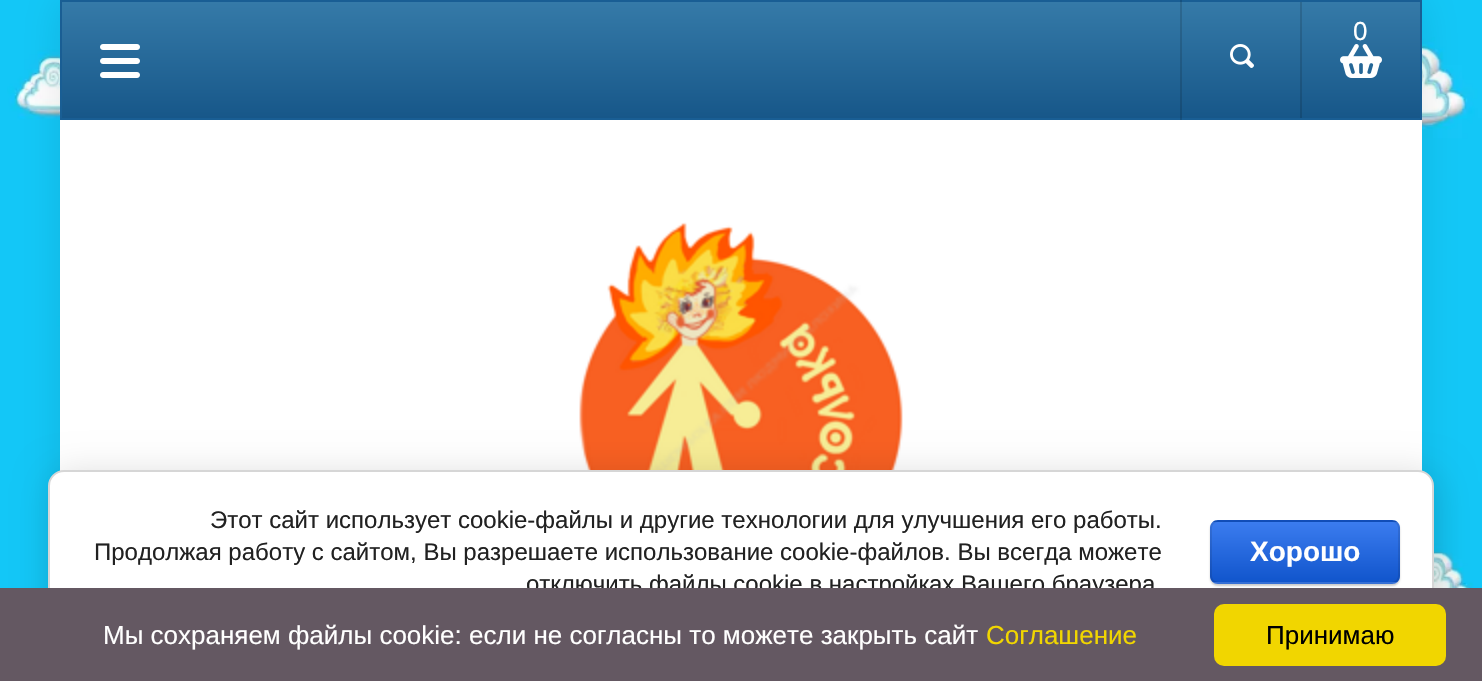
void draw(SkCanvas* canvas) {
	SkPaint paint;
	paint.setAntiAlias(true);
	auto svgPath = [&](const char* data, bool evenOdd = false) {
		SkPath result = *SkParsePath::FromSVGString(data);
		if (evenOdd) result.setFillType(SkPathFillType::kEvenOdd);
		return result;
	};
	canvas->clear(0xffffffff);
	canvas->drawImageRect(SkImages::DeferredFromEncodedData(SkData::MakeFromFileName("img1.png")), SkRect::MakeXYWH(0, 0, 1482, 588), SkSamplingOptions());
	paint.setColor(0x1a000000);
	paint.setMaskFilter(SkMaskFilter::MakeBlur(kNormal_SkBlurStyle, 20));
	canvas->drawRect(SkRect::MakeXYWH(60, 0, 1362, 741), paint);
	paint.setMaskFilter(nullptr);
	{
		const SkColor colors[] = {0xff357aa8, 0xff175789};
		const float stops[] = {0, 1};
		const SkPoint ends[] = {{741, 2}, {741, 118}};
		paint.setShader(SkGradientShader::MakeLinear(ends, colors, stops, 2, SkTileMode::kClamp));
		paint.setAlpha(255);
	}
	canvas->drawRect(SkRect::MakeXYWH(62, 2, 1358, 116), paint);
	paint.setStroke(true);
	paint.setStrokeWidth(2);
	paint.setShader(nullptr);
	paint.setColor(0xff195e94);
	canvas->drawRect(SkRect::MakeXYWH(61, 1, 1360, 118), paint);
	canvas->drawImageRect(SkImages::DeferredFromEncodedData(SkData::MakeFromFileName("img2.png")), SkRect::MakeXYWH(1230, 44, 24, 24), SkSamplingOptions());
	paint.setStroke(false);
	paint.setColor(0x24000000);
	canvas->drawRect(SkRect::MakeXYWH(1180, 0, 2, 120), paint);
	canvas->drawRect(SkRect::MakeXYWH(1300, 2, 2, 116), paint);
	canvas->drawImageRect(SkImages::DeferredFromEncodedData(SkData::MakeFromFileName("img3.png")), SkRect::MakeXYWH(1340, 44, 42, 34), SkSamplingOptions());
	SkFont f1(fontMgr->matchFamilyStyle("Liberation Sans", SkFontStyle::Normal()), 26);
	f1.setSubpixel(true);
	paint.setColor(0xffffffff);
	canvas->drawString("0", 1353, 40, f1, paint);
	canvas->drawImageRect(SkImages::DeferredFromEncodedData(SkData::MakeFromFileName("img4.png")), SkRect::MakeXYWH(100, 44, 40, 34), SkSamplingOptions());
	canvas->drawRect(SkRect::MakeXYWH(60, 120, 1362, 351), paint);
	canvas->drawImageRect(SkImages::DeferredFromEncodedData(SkData::MakeFromFileName("img5.png")), SkRect::MakeXYWH(579, 222, 324, 248), SkSamplingOptions());
	paint.setColor(0x24000000);
	paint.setMaskFilter(SkMaskFilter::MakeBlur(kNormal_SkBlurStyle, 18));
	canvas->drawRoundRect(SkRect::MakeXYWH(52, 474, 1386, 164), 16, 16, paint);
	paint.setMaskFilter(nullptr);
	paint.setColor(0xffffffff);
	canvas->drawRoundRect(SkRect::MakeXYWH(49, 471, 1384, 162), 15, 15, paint);
	paint.setStroke(true);
	paint.setColor(0xffd6d6d6);
	canvas->drawRoundRect(SkRect::MakeXYWH(49, 471, 1384, 162), 15, 15, paint);
	SkFont f2(fontMgr->matchFamilyStyle("Liberation Sans", SkFontStyle::Normal()), 24);
	f2.setSubpixel(true);
	paint.setStroke(false);
	paint.setColor(0xff212121);
	canvas->drawString("Этот сайт использует cookie-файлы и другие технологии для улучшения его работы.", 210, 528, f2, paint);
	canvas->drawString("Продолжая работу с сайтом, Вы разрешаете использование cookie-файлов. Вы всегда можете", 94, 560, f2, paint);
	canvas->drawString("отключить файлы cookie в настройках Вашего браузера", 526, 592, f2, paint);
	paint.setColor(0x33000000);
	paint.setMaskFilter(SkMaskFilter::MakeBlur(kNormal_SkBlurStyle, 1));
	canvas->drawRoundRect(SkRect::MakeXYWH(1210, 522, 190, 64), 8, 8, paint);
	paint.setMaskFilter(nullptr);
	canvas->save();
	canvas->clipPath(svgPath("M1218 520H1392C1396.5 520 1400 523.5 1400 528V576C1400 580.5 1396.5 584 1392 584H1218C1213.5 584 1210 580.5 1210 576V528C1210 523.5 1213.5 520 1218 520Z"), true);
	{
		const SkColor colors[] = {0xff3b7cef, 0xff1155cc};
		const float stops[] = {0, 1};
		const SkPoint ends[] = {{1305, 462}, {1305, 522}};
		paint.setShader(SkGradientShader::MakeLinear(ends, colors, stops, 2, SkTileMode::kClamp));
		paint.setAlpha(255);
	}
	canvas->drawRect(SkRect::MakeXYWH(1210, 520, 190, 2), paint);
	{
		const SkColor colors[] = {0xff3b7cef, 0xff1155cc};
		const float stops[] = {0, 1};
		const SkPoint ends[] = {{1305, 522}, {1305, 582}};
		paint.setShader(SkGradientShader::MakeLinear(ends, colors, stops, 2, SkTileMode::kClamp));
		paint.setAlpha(255);
	}
	canvas->drawRect(SkRect::MakeXYWH(1210, 522, 190, 60), paint);
	{
		const SkColor colors[] = {0xff3b7cef, 0xff1155cc};
		const float stops[] = {0, 1};
		const SkPoint ends[] = {{1305, 582}, {1305, 642}};
		paint.setShader(SkGradientShader::MakeLinear(ends, colors, stops, 2, SkTileMode::kClamp));
		paint.setAlpha(255);
	}
	canvas->drawRect(SkRect::MakeXYWH(1210, 582, 190, 2), paint);
	canvas->restore();
	paint.setStroke(true);
	paint.setShader(nullptr);
	paint.setColor(0x1a000000);
	canvas->drawRoundRect(SkRect::MakeXYWH(1211, 521, 188, 62), 7, 7, paint);
	SkFont f3(fontMgr->matchFamilyStyle("Liberation Sans", SkFontStyle::Bold()), 28);
	f3.setSubpixel(true);
	paint.setStroke(false);
	paint.setColor(0xffffffff);
	canvas->drawString("Хорошо", 1250, 561, f3, paint);
	paint.setColor(0xff645862);
	canvas->drawRect(SkRect::MakeXYWH(0, 588, 1482, 93), paint);
	paint.setColor(0xffffffff);
	canvas->drawString("Мы cохраняем файлы cookie: если не согласны то можете закрыть сайт", 103, 644, f1, paint);
	paint.setColor(0xfff1d600);
	canvas->drawString("Соглашение", 986, 644, f1, paint);
	canvas->drawRoundRect(SkRect::MakeXYWH(1214, 604, 232, 62), 10, 10, paint);
	paint.setColor(0xff000000);
	canvas->drawString("Принимаю", 1266, 644, f1, paint);
}
